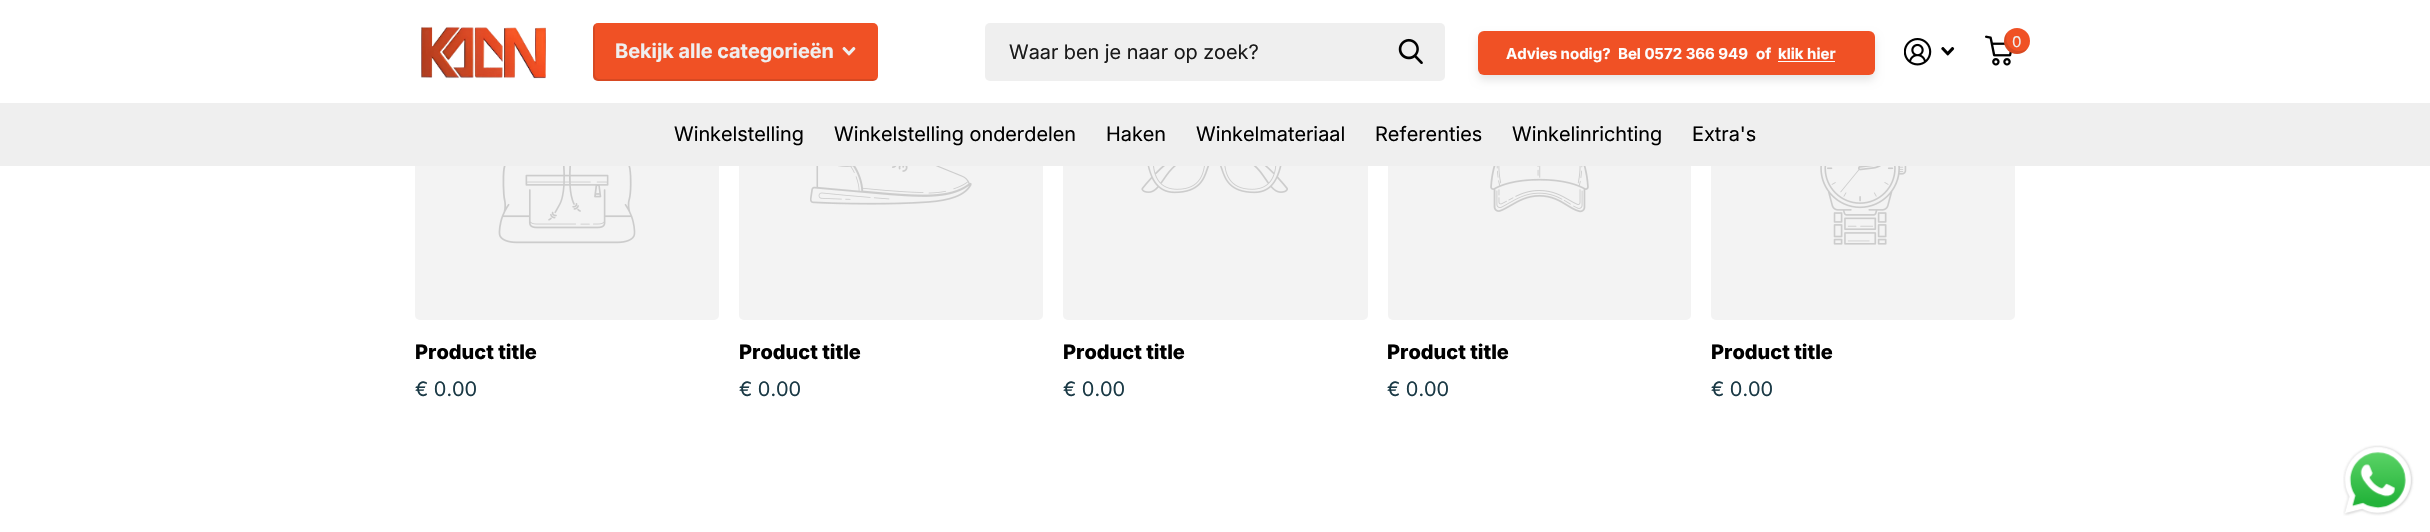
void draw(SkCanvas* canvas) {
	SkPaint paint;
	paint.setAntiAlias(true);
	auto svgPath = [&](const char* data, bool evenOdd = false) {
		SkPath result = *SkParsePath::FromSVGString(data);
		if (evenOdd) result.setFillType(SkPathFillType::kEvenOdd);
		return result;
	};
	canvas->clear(0xffffffff);
	paint.setColor(0xfff3f3f3);
	canvas->drawRoundRect(SkRect::MakeXYWH(415, 16, 304, 304), 5, 5, paint);
	canvas->drawRoundRect(SkRect::MakeXYWH(739, 16, 304, 304), 5, 5, paint);
	canvas->drawRoundRect(SkRect::MakeXYWH(1063, 16, 305, 304), 5, 5, paint);
	canvas->drawRoundRect(SkRect::MakeXYWH(1388, 16, 303, 304), 5, 5, paint);
	canvas->drawRoundRect(SkRect::MakeXYWH(1711, 16, 304, 304), 5, 5, paint);
	paint.setColor(0xffffffff);
	canvas->drawRect(SkRect::MakeXYWH(415, 16, 1600, 87), paint);
	canvas->drawImageRect(SkImages::DeferredFromEncodedData(SkData::MakeFromFileName("img1.png")), SkRect::MakeXYWH(421, 26, 125, 53), SkSamplingOptions());
	paint.setColor(0xfff05125);
	canvas->drawRoundRect(SkRect::MakeXYWH(593, 23, 285, 58), 5, 5, paint);
	paint.setColor(0x1a000000);
	canvas->drawPath(svgPath("M595 24C594 25 593 26 593 28V76C593 79 595 81 598 81H873C875 81 876 80 877 79H875H600C597 79 595 77 595 74Z"), paint);
	SkFont f1(fontMgr->matchFamilyStyle("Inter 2", SkFontStyle::Bold()), 20);
	f1.setSubpixel(true);
	paint.setColor(0xffefefef);
	canvas->drawString("Bekijk alle categorieën", 615, 58, f1, paint);
	canvas->drawImageRect(SkImages::DeferredFromEncodedData(SkData::MakeFromFileName("img2.png")), SkRect::MakeXYWH(842, 47, 14, 9), SkSamplingOptions());
	canvas->drawRoundRect(SkRect::MakeXYWH(985, 23, 460, 58), 5, 5, paint);
	SkFont f2(fontMgr->matchFamilyStyle("Inter", SkFontStyle::Normal()), 20);
	f2.setSubpixel(true);
	paint.setColor(0xff1a1a1a);
	canvas->drawString("Waar ben je naar op zoek?", 1009, 59, f2, paint);
	canvas->drawImageRect(SkImages::DeferredFromEncodedData(SkData::MakeFromFileName("img3.png")), SkRect::MakeXYWH(1398, 38, 25, 26), SkSamplingOptions());
	paint.setColor(0x1a000000);
	paint.setMaskFilter(SkMaskFilter::MakeBlur(kNormal_SkBlurStyle, 4));
	canvas->drawRoundRect(SkRect::MakeXYWH(1478, 36, 397, 44), 6, 6, paint);
	paint.setMaskFilter(nullptr);
	paint.setColor(0xfff05125);
	canvas->drawRoundRect(SkRect::MakeXYWH(1478, 31, 397, 44), 6, 6, paint);
	SkFont f3(fontMgr->matchFamilyStyle("Inter", SkFontStyle::Bold()), 15);
	f3.setSubpixel(true);
	paint.setColor(0xfffdfdfd);
	canvas->drawString("Advies nodig?", 1506, 59, f3, paint);
	canvas->drawString("Bel 0572 366 949", 1618, 59, f3, paint);
	canvas->drawString("of", 1756, 59, f3, paint);
	canvas->drawString("klik hier", 1778, 59, f3, paint);
	canvas->drawRect(SkRect::MakeXYWH(1778, 61, 57, 1), paint);
	canvas->drawImageRect(SkImages::DeferredFromEncodedData(SkData::MakeFromFileName("img4.png")), SkRect::MakeXYWH(1904, 38, 28, 28), SkSamplingOptions());
	canvas->drawImageRect(SkImages::DeferredFromEncodedData(SkData::MakeFromFileName("img5.png")), SkRect::MakeXYWH(1941, 47, 14, 9), SkSamplingOptions());
	canvas->drawImageRect(SkImages::DeferredFromEncodedData(SkData::MakeFromFileName("img6.png")), SkRect::MakeXYWH(1985, 35, 27, 31), SkSamplingOptions());
	paint.setColor(0xfff05125);
	canvas->drawCircle(2017, 41, 13, paint);
	paint.setColor(0x1a000000);
	canvas->drawPath(svgPath("M2028 48C2017.5 56.5 2001.5 46 2007.5 32C2002 38 2003 47.5 2009.5 52C2015.5 56 2024 54 2028 48Z"), paint);
	SkFont f4(fontMgr->matchFamilyStyle("Inter 2", SkFontStyle::Normal()), 15);
	f4.setSubpixel(true);
	paint.setColor(0xffefefef);
	canvas->drawString("0", 2012, 47, f4, paint);
	canvas->drawRect(SkRect::MakeXYWH(0, 103, 2430, 63), paint);
	paint.setColor(0xff000000);
	canvas->drawString("Winkelstelling", 674, 141, f2, paint);
	canvas->drawString("Winkelstelling onderdelen", 834, 141, f2, paint);
	canvas->drawString("Haken", 1106, 141, f2, paint);
	canvas->drawString("Winkelmateriaal", 1196, 141, f2, paint);
	canvas->drawString("Referenties", 1375, 141, f2, paint);
	canvas->drawString("Winkelinrichting", 1512, 141, f2, paint);
	canvas->drawString("Extra's", 1692, 141, f2, paint);
	canvas->drawImageRect(SkImages::DeferredFromEncodedData(SkData::MakeFromFileName("img7.png")), SkRect::MakeXYWH(498, 166, 138, 78), SkSamplingOptions());
	SkFont f5(fontMgr->matchFamilyStyle("Inter", SkFontStyle(800, SkFontStyle::kNormal_Width, SkFontStyle::kUpright_Slant)), 20);
	f5.setSubpixel(true);
	canvas->drawString("Product title", 415, 359, f5, paint);
	paint.setColor(0xff1a3945);
	canvas->drawString("€ 0.00", 415, 396, f2, paint);
	canvas->drawImageRect(SkImages::DeferredFromEncodedData(SkData::MakeFromFileName("img8.png")), SkRect::MakeXYWH(810, 166, 162, 39), SkSamplingOptions());
	paint.setColor(0xff000000);
	canvas->drawString("Product title", 739, 359, f5, paint);
	paint.setColor(0xff1a3945);
	canvas->drawString("€ 0.00", 739, 396, f2, paint);
	canvas->drawImageRect(SkImages::DeferredFromEncodedData(SkData::MakeFromFileName("img9.png")), SkRect::MakeXYWH(1141, 166, 147, 28), SkSamplingOptions());
	paint.setColor(0xff000000);
	canvas->drawString("Product title", 1063, 359, f5, paint);
	paint.setColor(0xff1a3945);
	canvas->drawString("€ 0.00", 1063, 396, f2, paint);
	canvas->drawImageRect(SkImages::DeferredFromEncodedData(SkData::MakeFromFileName("img10.png")), SkRect::MakeXYWH(1490, 166, 99, 47), SkSamplingOptions());
	paint.setColor(0xff000000);
	canvas->drawString("Product title", 1387, 359, f5, paint);
	paint.setColor(0xff1a3945);
	canvas->drawString("€ 0.00", 1387, 396, f2, paint);
	canvas->drawImageRect(SkImages::DeferredFromEncodedData(SkData::MakeFromFileName("img11.png")), SkRect::MakeXYWH(1820, 166, 87, 79), SkSamplingOptions());
	paint.setColor(0xff000000);
	canvas->drawString("Product title", 1711, 359, f5, paint);
	paint.setColor(0xff1a3945);
	canvas->drawString("€ 0.00", 1711, 396, f2, paint);
	canvas->drawImageRect(SkImages::DeferredFromEncodedData(SkData::MakeFromFileName("img12.png")), SkRect::MakeXYWH(2343, 445, 71, 71), SkSamplingOptions());
}
